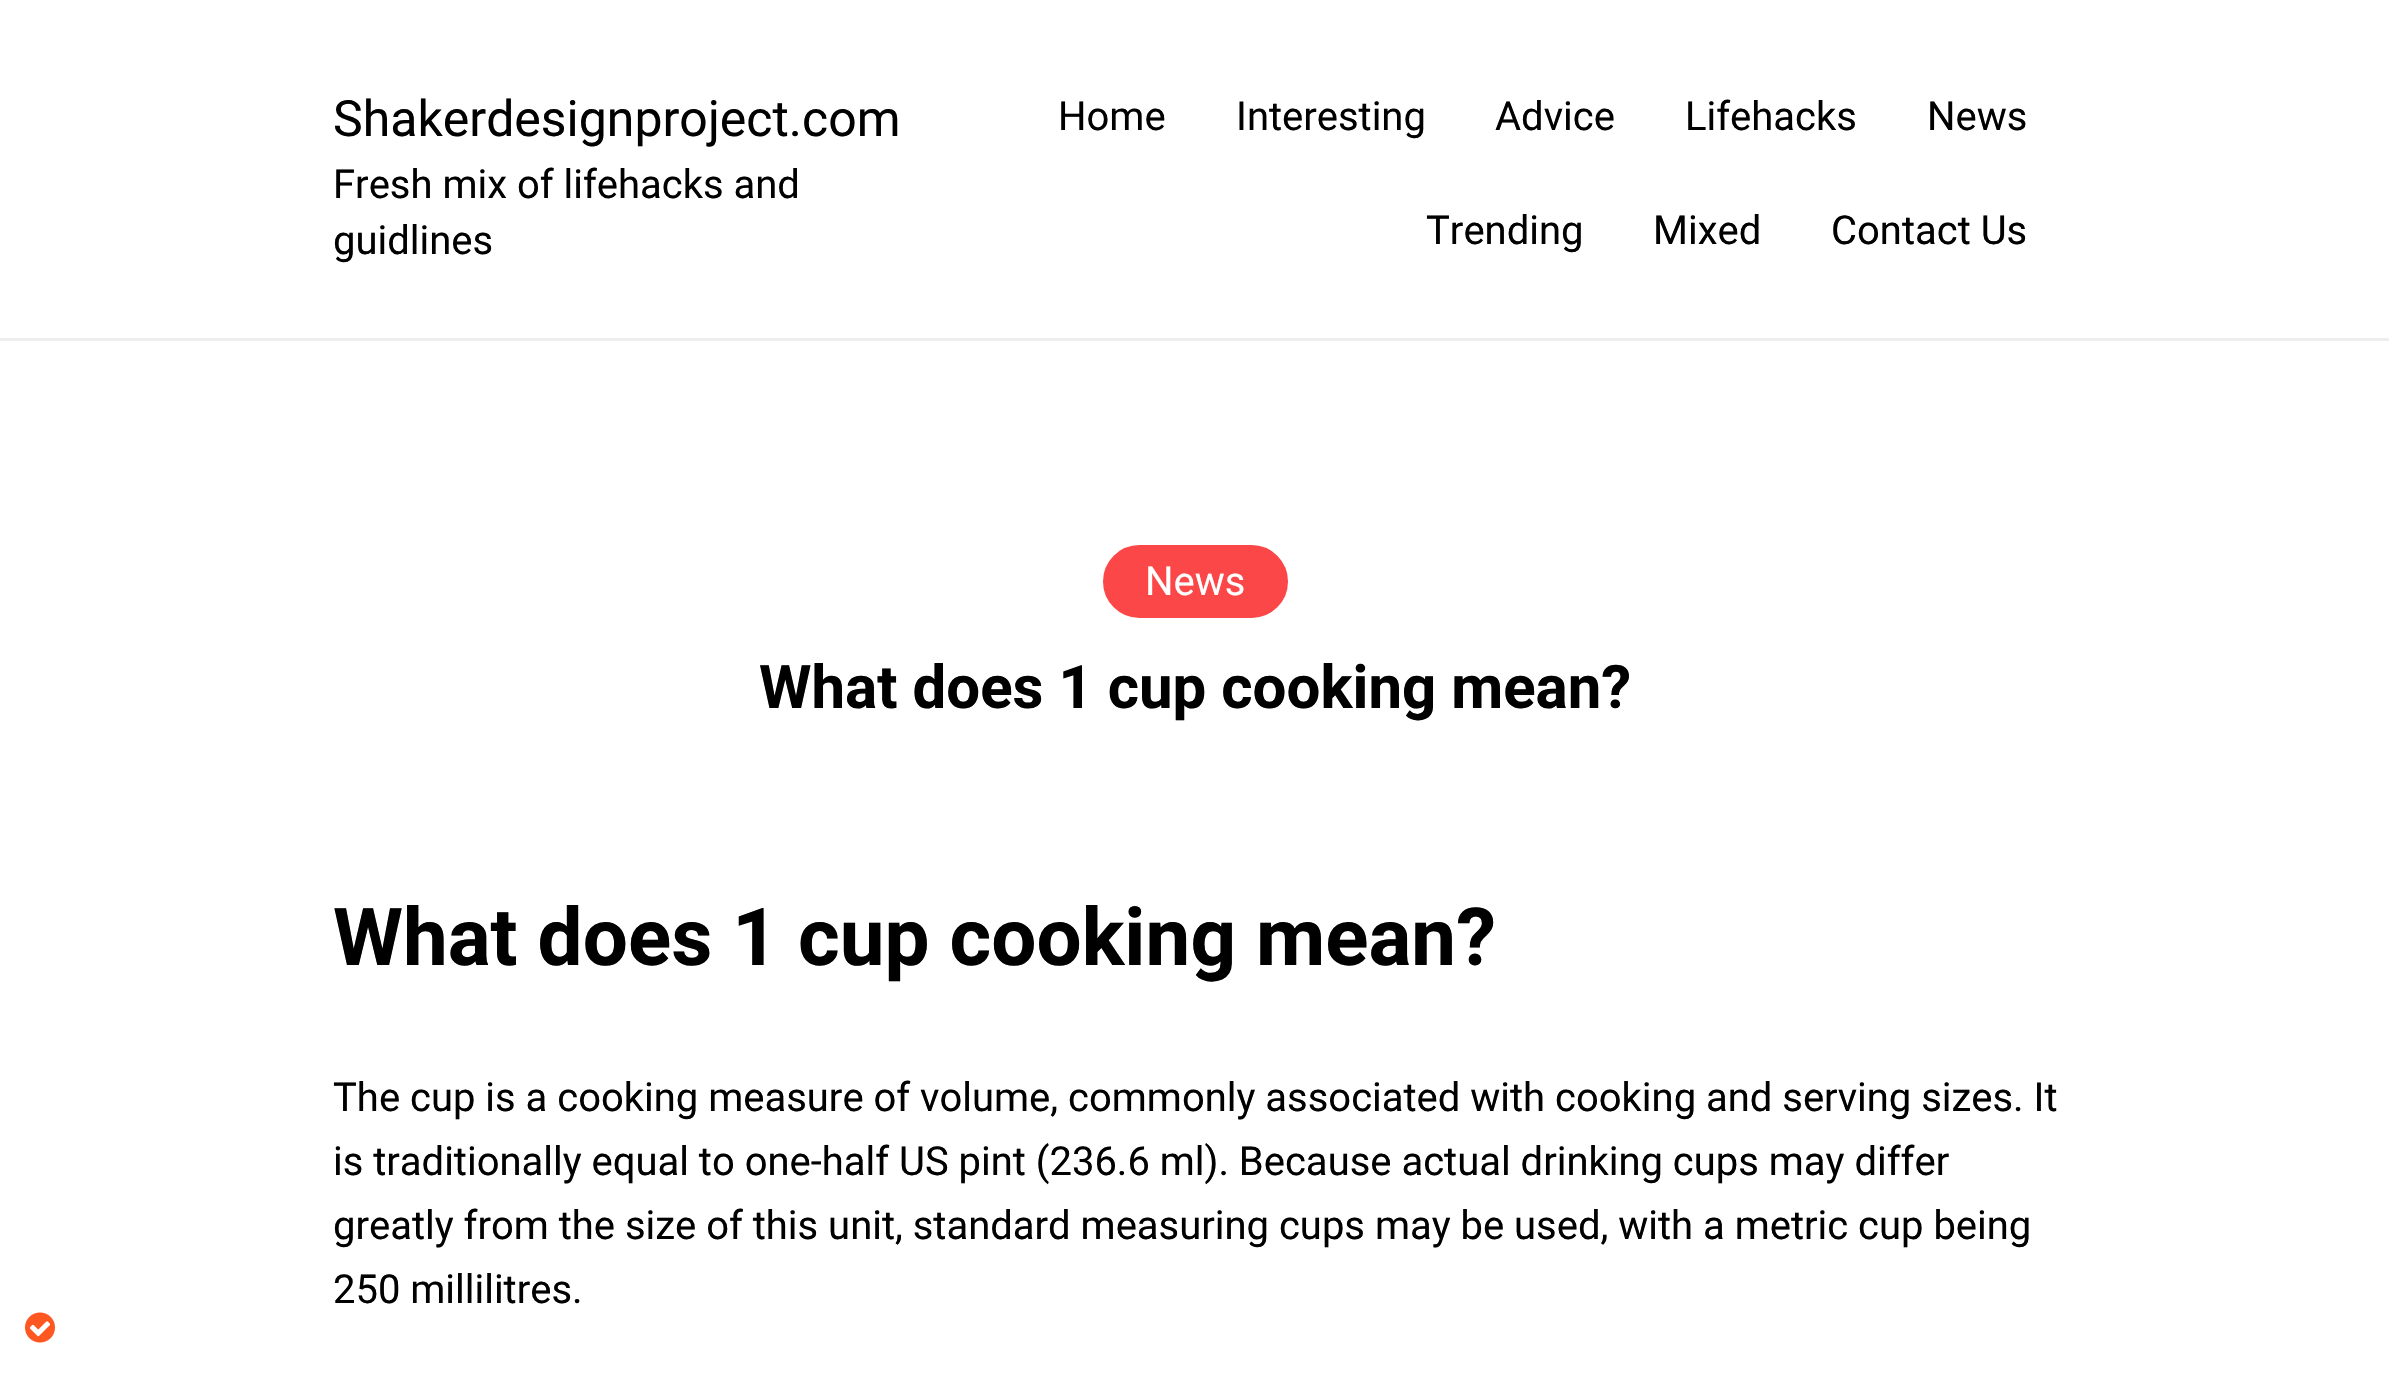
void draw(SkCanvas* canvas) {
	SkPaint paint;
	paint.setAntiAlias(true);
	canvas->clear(0xffffffff);
	paint.setColor(0xffeeeeee);
	canvas->drawRect(SkRect::MakeXYWH(0, 338, 2389, 3), paint);
	SkFont f1(fontMgr->matchFamilyStyle("Roboto", SkFontStyle::Normal()), 50);
	f1.setSubpixel(true);
	paint.setColor(0xff000000);
	canvas->drawString("Shakerdesignproject.com", 333, 136, f1, paint);
	SkFont f2(fontMgr->matchFamilyStyle("Roboto", SkFontStyle::Normal()), 40);
	f2.setSubpixel(true);
	canvas->drawString("Fresh mix of lifehacks and", 333, 198, f2, paint);
	canvas->drawString("guidlines", 333, 254, f2, paint);
	canvas->drawString("Home", 1058, 130, f2, paint);
	canvas->drawString("Interesting", 1236, 130, f2, paint);
	canvas->drawString("Advice", 1495, 130, f2, paint);
	canvas->drawString("Lifehacks", 1685, 130, f2, paint);
	canvas->drawString("News", 1927, 130, f2, paint);
	canvas->drawString("Trending", 1426, 244, f2, paint);
	canvas->drawString("Mixed", 1653, 244, f2, paint);
	canvas->drawString("Contact Us", 1831, 244, f2, paint);
	paint.setColor(0xfffb4747);
	canvas->drawRoundRect(SkRect::MakeXYWH(1100.5, 542.5, 190, 78), 39, 39, paint);
	paint.setStroke(true);
	paint.setStrokeWidth(5);
	paint.setColor(0xffffffff);
	canvas->drawRoundRect(SkRect::MakeXYWH(1100.5, 542.5, 190, 78), 39, 39, paint);
	paint.setStroke(false);
	canvas->drawString("News", 1145, 595, f2, paint);
	SkFont f3(fontMgr->matchFamilyStyle("Roboto", SkFontStyle::Bold()), 60);
	f3.setSubpixel(true);
	paint.setColor(0xff000000);
	canvas->drawString("What does 1 cup cooking mean?", 759, 708, f3, paint);
	SkFont f4(fontMgr->matchFamilyStyle("Roboto", SkFontStyle::Bold()), 80);
	f4.setSubpixel(true);
	canvas->drawString("What does 1 cup cooking mean?", 333, 965, f4, paint);
	canvas->drawString("The cup is a cooking measure of volume, commonly associated with cooking and serving sizes. It", 333, 1111, f2, paint);
	canvas->drawString("is traditionally equal to one-half US pint (236.6 ml). Because actual drinking cups may differ", 333, 1175, f2, paint);
	canvas->drawString("greatly from the size of this unit, standard measuring cups may be used, with a metric cup being", 333, 1239, f2, paint);
	canvas->drawString("250 millilitres.", 333, 1303, f2, paint);
	canvas->drawImageRect(SkImages::DeferredFromEncodedData(SkData::MakeFromFileName("img1.png")), SkRect::MakeXYWH(25, 1312, 30, 31), SkSamplingOptions());
}
